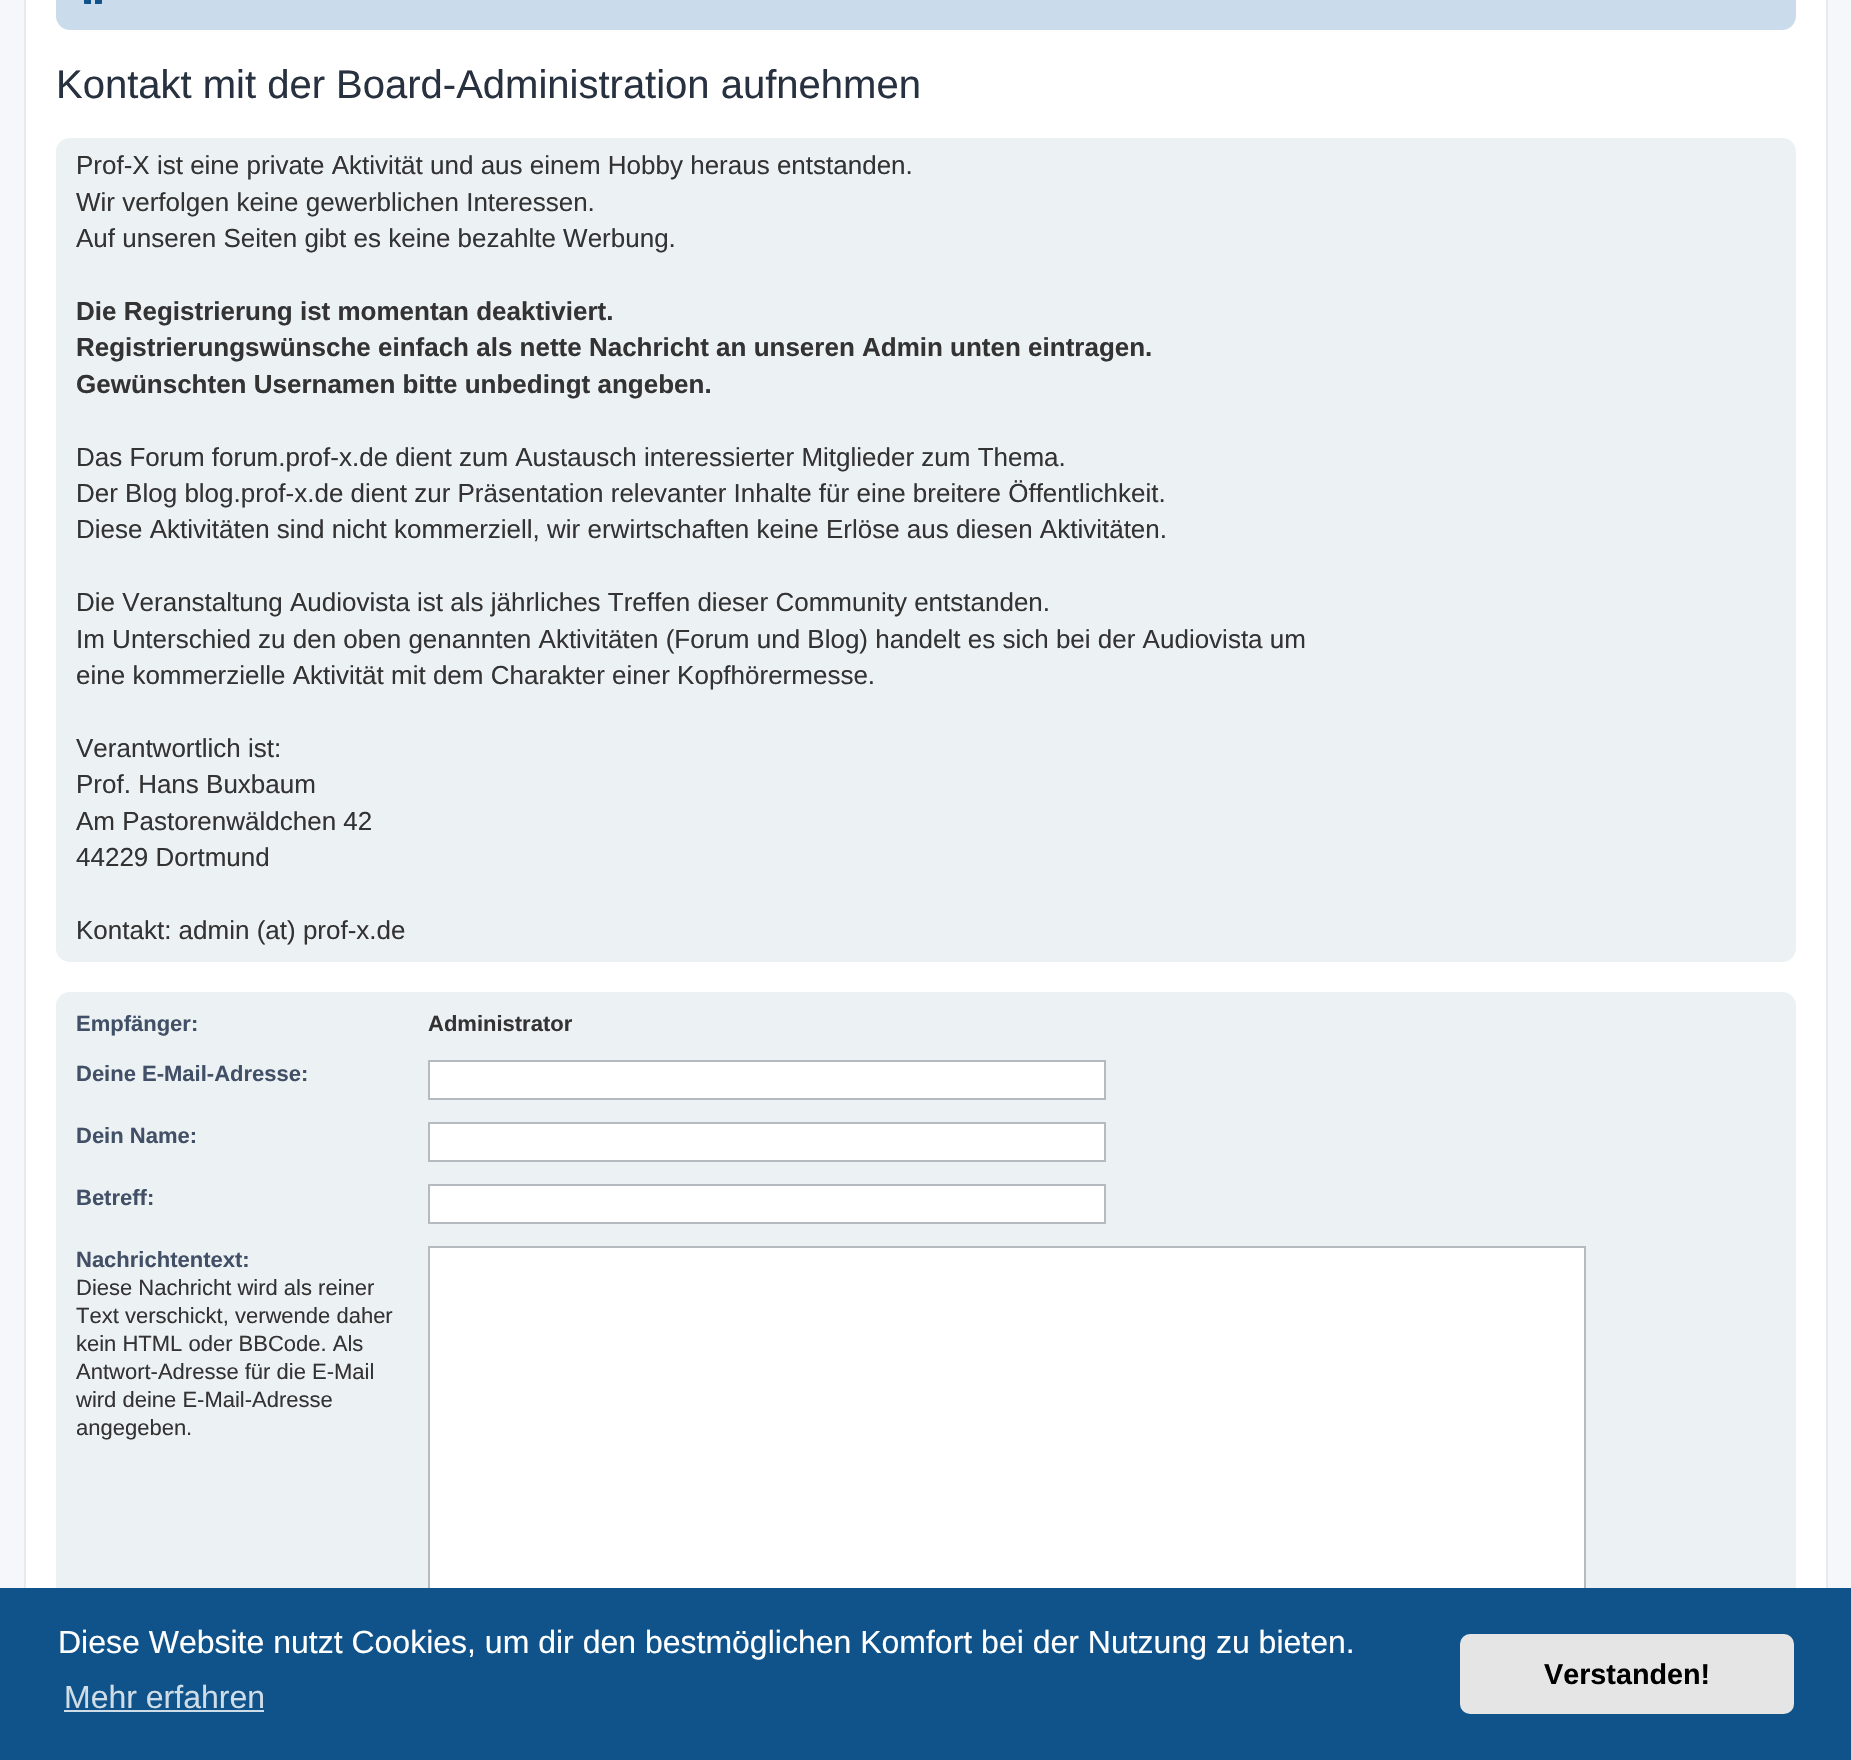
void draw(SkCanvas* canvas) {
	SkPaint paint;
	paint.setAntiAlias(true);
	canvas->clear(0xfff5f7fa);
	paint.setColor(0xffffffff);
	canvas->drawRect(SkRect::MakeXYWH(26, 0, 1800, 1588), paint);
	paint.setStroke(true);
	paint.setStrokeWidth(2);
	paint.setColor(0xffe6e9ed);
	canvas->drawRect(SkRect::MakeXYWH(25, -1, 1802, 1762), paint);
	paint.setStroke(false);
	paint.setColor(0xffcadceb);
	canvas->drawRoundRect(SkRect::MakeXYWH(56, -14, 1740, 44), 14, 14, paint);
	canvas->drawImageRect(SkImages::DeferredFromEncodedData(SkData::MakeFromFileName("img1.png")), SkRect::MakeXYWH(84, 0, 18, 4), SkSamplingOptions());
	SkFont f1(fontMgr->matchFamilyStyle("Liberation Sans", SkFontStyle::Normal()), 40);
	f1.setSubpixel(true);
	paint.setColor(0xff28313f);
	canvas->drawString("Kontakt mit der Board-Administration aufnehmen", 56, 98, f1, paint);
	paint.setColor(0xffecf1f3);
	canvas->drawRoundRect(SkRect::MakeXYWH(56, 138, 1740, 824), 14, 14, paint);
	SkFont f2(fontMgr->matchFamilyStyle("Liberation Sans", SkFontStyle::Normal()), 26);
	f2.setSubpixel(true);
	paint.setColor(0xff333333);
	canvas->drawString("Prof-X ist eine private Aktivität und aus einem Hobby heraus entstanden.", 76, 174, f2, paint);
	canvas->drawString("Wir verfolgen keine gewerblichen Interessen.", 76, 211, f2, paint);
	canvas->drawString("Auf unseren Seiten gibt es keine bezahlte Werbung.", 76, 247, f2, paint);
	SkFont f3(fontMgr->matchFamilyStyle("Liberation Sans", SkFontStyle::Bold()), 26);
	f3.setSubpixel(true);
	canvas->drawString("Die Registrierung ist momentan deaktiviert.", 76, 320, f3, paint);
	canvas->drawString("Registrierungswünsche einfach als nette Nachricht an unseren Admin unten eintragen.", 76, 356, f3, paint);
	canvas->drawString("Gewünschten Usernamen bitte unbedingt angeben.", 76, 393, f3, paint);
	canvas->drawString("Das Forum forum.prof-x.de dient zum Austausch interessierter Mitglieder zum Thema.", 76, 466, f2, paint);
	canvas->drawString("Der Blog blog.prof-x.de dient zur Präsentation relevanter Inhalte für eine breitere Öffentlichkeit.", 76, 502, f2, paint);
	canvas->drawString("Diese Aktivitäten sind nicht kommerziell, wir erwirtschaften keine Erlöse aus diesen Aktivitäten.", 76, 538, f2, paint);
	canvas->drawString("Die Veranstaltung Audiovista ist als jährliches Treffen dieser Community entstanden.", 76, 611, f2, paint);
	canvas->drawString("Im Unterschied zu den oben genannten Aktivitäten (Forum und Blog) handelt es sich bei der Audiovista um", 76, 648, f2, paint);
	canvas->drawString("eine kommerzielle Aktivität mit dem Charakter einer Kopfhörermesse.", 76, 684, f2, paint);
	canvas->drawString("Verantwortlich ist:", 76, 757, f2, paint);
	canvas->drawString("Prof. Hans Buxbaum", 76, 793, f2, paint);
	canvas->drawString("Am Pastorenwäldchen 42", 76, 830, f2, paint);
	canvas->drawString("44229 Dortmund", 76, 866, f2, paint);
	canvas->drawString("Kontakt: admin (at) prof-x.de", 76, 939, f2, paint);
	paint.setColor(0xffecf1f3);
	canvas->drawRoundRect(SkRect::MakeXYWH(56, 992, 1740, 760), 14, 14, paint);
	SkFont f4(fontMgr->matchFamilyStyle("Liberation Sans", SkFontStyle::Bold()), 22);
	f4.setSubpixel(true);
	paint.setColor(0xff425067);
	canvas->drawString("Empfänger:", 76, 1031, f4, paint);
	paint.setColor(0xff333333);
	canvas->drawString("Administrator", 428, 1031, f4, paint);
	paint.setColor(0xff425067);
	canvas->drawString("Deine E-Mail-Adresse:", 76, 1081, f4, paint);
	paint.setColor(0xffffffff);
	canvas->drawRect(SkRect::MakeXYWH(429, 1061, 676, 38), paint);
	paint.setStroke(true);
	paint.setColor(0xffb4bac0);
	canvas->drawRect(SkRect::MakeXYWH(429, 1061, 676, 38), paint);
	paint.setStroke(false);
	paint.setColor(0xff425067);
	canvas->drawString("Dein Name:", 76, 1143, f4, paint);
	paint.setColor(0xffffffff);
	canvas->drawRect(SkRect::MakeXYWH(429, 1123, 676, 38), paint);
	paint.setStroke(true);
	paint.setColor(0xffb4bac0);
	canvas->drawRect(SkRect::MakeXYWH(429, 1123, 676, 38), paint);
	paint.setStroke(false);
	paint.setColor(0xff425067);
	canvas->drawString("Betreff:", 76, 1205, f4, paint);
	paint.setColor(0xffffffff);
	canvas->drawRect(SkRect::MakeXYWH(429, 1185, 676, 38), paint);
	paint.setStroke(true);
	paint.setColor(0xffb4bac0);
	canvas->drawRect(SkRect::MakeXYWH(429, 1185, 676, 38), paint);
	paint.setStroke(false);
	paint.setColor(0xff425067);
	canvas->drawString("Nachrichtentext:", 76, 1267, f4, paint);
	SkFont f5(fontMgr->matchFamilyStyle("Liberation Sans", SkFontStyle::Normal()), 22);
	f5.setSubpixel(true);
	paint.setColor(0xff333333);
	canvas->drawString("Diese Nachricht wird als reiner", 76, 1295, f5, paint);
	canvas->drawString("Text verschickt, verwende daher", 76, 1323, f5, paint);
	canvas->drawString("kein HTML oder BBCode. Als", 76, 1351, f5, paint);
	canvas->drawString("Antwort-Adresse für die E-Mail", 76, 1379, f5, paint);
	canvas->drawString("wird deine E-Mail-Adresse", 76, 1407, f5, paint);
	canvas->drawString("angegeben.", 76, 1435, f5, paint);
	paint.setColor(0xffffffff);
	canvas->drawRect(SkRect::MakeXYWH(430, 1248, 1154, 340), paint);
	paint.setStroke(true);
	paint.setColor(0xffb4bac0);
	canvas->drawRect(SkRect::MakeXYWH(429, 1247, 1156, 472), paint);
	paint.setStroke(false);
	paint.setColor(0xff0f538a);
	canvas->drawRect(SkRect::MakeXYWH(0, 1588, 1851, 172), paint);
	SkFont f6(fontMgr->matchFamilyStyle("Liberation Sans", SkFontStyle::Normal()), 32);
	f6.setSubpixel(true);
	paint.setColor(0xffffffff);
	canvas->drawString("Diese Website nutzt Cookies, um dir den bestmöglichen Komfort bei der Nutzung zu bieten.", 58, 1653, f6, paint);
	paint.setColor(0xffcfdde8);
	canvas->drawString("Mehr erfahren", 64, 1708, f6, paint);
	canvas->drawRect(SkRect::MakeXYWH(64, 1710, 200, 2), paint);
	paint.setColor(0xffe5e5e5);
	canvas->drawRoundRect(SkRect::MakeXYWH(1460, 1634, 334, 80), 10, 10, paint);
	SkFont f7(fontMgr->matchFamilyStyle("Liberation Sans", SkFontStyle::Bold()), 28.75);
	f7.setSubpixel(true);
	paint.setColor(0xff000000);
	canvas->drawString("Verstanden!", 1544, 1684, f7, paint);
}
